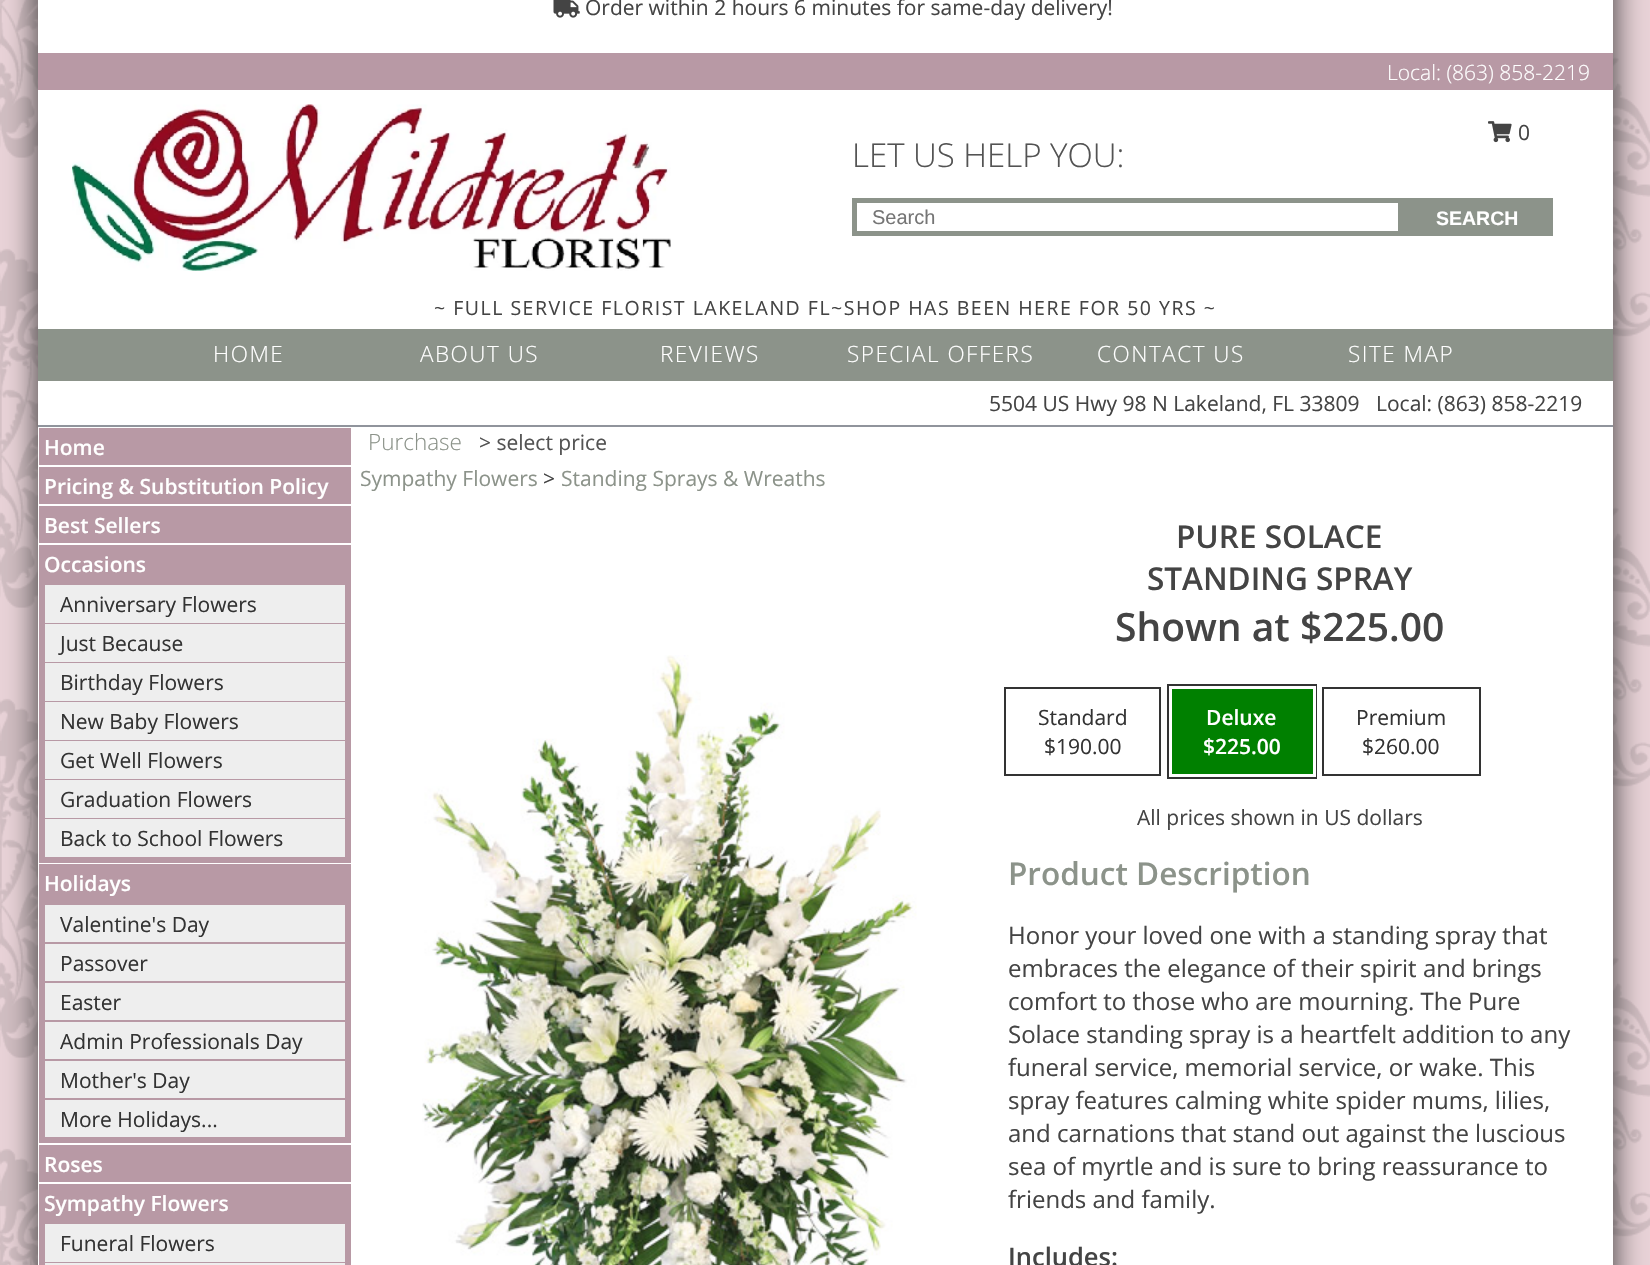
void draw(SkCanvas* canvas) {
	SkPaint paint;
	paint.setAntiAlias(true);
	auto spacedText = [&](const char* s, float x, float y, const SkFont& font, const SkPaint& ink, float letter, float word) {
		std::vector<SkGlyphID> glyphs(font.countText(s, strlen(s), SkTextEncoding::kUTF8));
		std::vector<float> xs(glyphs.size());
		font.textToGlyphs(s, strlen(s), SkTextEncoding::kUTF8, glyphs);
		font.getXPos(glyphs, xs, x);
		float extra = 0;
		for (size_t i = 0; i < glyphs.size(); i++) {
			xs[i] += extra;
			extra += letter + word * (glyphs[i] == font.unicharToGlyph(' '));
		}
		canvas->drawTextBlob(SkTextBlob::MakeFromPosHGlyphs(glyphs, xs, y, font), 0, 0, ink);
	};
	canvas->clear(0xffe9d3d8);
	canvas->drawImageRect(SkImages::DeferredFromEncodedData(SkData::MakeFromFileName("img1.png")), SkRect::MakeXYWH(0, 0, 1650, 1265), SkSamplingOptions());
	paint.setColor(0xff333333);
	paint.setMaskFilter(SkMaskFilter::MakeBlur(kNormal_SkBlurStyle, 15));
	canvas->drawRect(SkRect::MakeXYWH(38, -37, 1575, 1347), paint);
	paint.setMaskFilter(nullptr);
	paint.setColor(0xffffffff);
	canvas->drawRect(SkRect::MakeXYWH(38, 0, 1575, 1265), paint);
	canvas->drawImageRect(SkImages::DeferredFromEncodedData(SkData::MakeFromFileName("img2.png")), SkRect::MakeXYWH(553, 0, 27, 18), SkSamplingOptions());
	SkFont f1(fontMgr->matchFamilyStyle("Open Sans", SkFontStyle::Normal()), 21);
	f1.setSubpixel(true);
	paint.setColor(0xff444444);
	canvas->drawString("Order within 2 hours 6 minutes for same-day delivery!", 585, 15, f1, paint);
	paint.setColor(0xffb899a5);
	canvas->drawRect(SkRect::MakeXYWH(38, 53, 1575, 37), paint);
	SkFont f2(fontMgr->matchFamilyStyle("Open Sans", SkFontStyle(300, SkFontStyle::kNormal_Width, SkFontStyle::kUpright_Slant)), 21);
	f2.setSubpixel(true);
	paint.setColor(0xffffffff);
	canvas->drawString("Local: (863) 858-2219", 1387, 80, f2, paint);
	canvas->drawImageRect(SkImages::DeferredFromEncodedData(SkData::MakeFromFileName("img3.png")), SkRect::MakeXYWH(72, 104, 599, 167), SkSamplingOptions());
	canvas->drawImageRect(SkImages::DeferredFromEncodedData(SkData::MakeFromFileName("img4.png")), SkRect::MakeXYWH(1488, 121, 24, 22), SkSamplingOptions());
	paint.setColor(0xff444444);
	canvas->drawString("0", 1518, 140, f1, paint);
	SkFont f3(fontMgr->matchFamilyStyle("Open Sans", SkFontStyle(300, SkFontStyle::kNormal_Width, SkFontStyle::kUpright_Slant)), 33);
	f3.setSubpixel(true);
	paint.setColor(0xff535353);
	canvas->drawString("LET US HELP YOU:", 852, 167, f3, paint);
	paint.setStroke(true);
	paint.setStrokeWidth(5);
	paint.setColor(0xff8c938a);
	canvas->drawRect(SkRect::MakeXYWH(854.5, 200.5, 546, 33), paint);
	SkFont f4(fontMgr->matchFamilyStyle("Liberation Sans", SkFontStyle::Normal()), 20);
	f4.setSubpixel(true);
	paint.setStroke(false);
	paint.setColor(0xff757575);
	canvas->drawString("Search", 872, 224, f4, paint);
	paint.setColor(0xff8c938a);
	canvas->drawRect(SkRect::MakeXYWH(1403, 198, 150, 38), paint);
	SkFont f5(fontMgr->matchFamilyStyle("Liberation Sans", SkFontStyle::Bold()), 19.5);
	f5.setSubpixel(true);
	paint.setColor(0xffffffff);
	canvas->drawString("SEARCH", 1436, 225, f5, paint);
	SkFont f6(fontMgr->matchFamilyStyle("Open Sans", SkFontStyle::Normal()), 19.5);
	f6.setSubpixel(true);
	paint.setColor(0xff444444);
	spacedText("~ FULL SERVICE FLORIST LAKELAND FL~SHOP HAS BEEN HERE FOR 50 YRS ~", 434, 315, f6, paint, 1.5, 0);
	paint.setColor(0xff8c938a);
	canvas->drawRect(SkRect::MakeXYWH(38, 329, 1575, 52), paint);
	SkFont f7(fontMgr->matchFamilyStyle("Open Sans", SkFontStyle(300, SkFontStyle::kNormal_Width, SkFontStyle::kUpright_Slant)), 22.5);
	f7.setSubpixel(true);
	paint.setColor(0xffffffff);
	spacedText("HOME", 213, 362, f7, paint, 1.5, 0);
	spacedText("ABOUT US", 420, 362, f7, paint, 1.5, 0);
	spacedText("REVIEWS", 660, 362, f7, paint, 1.5, 0);
	spacedText("SPECIAL OFFERS", 847, 362, f7, paint, 1.5, 0);
	spacedText("CONTACT US", 1097, 362, f7, paint, 1.5, 0);
	spacedText("SITE MAP", 1348, 362, f7, paint, 1.5, 0);
	paint.setColor(0xff90949c);
	canvas->drawRect(SkRect::MakeXYWH(38, 425, 1575, 2), paint);
	paint.setColor(0xff444444);
	canvas->drawString("5504 US Hwy 98 N Lakeland, FL 33809", 989, 411, f1, paint);
	canvas->drawString("Local: (863) 858-2219", 1376, 411, f1, paint);
	paint.setColor(0xffb899a5);
	canvas->drawRect(SkRect::MakeXYWH(39, 428, 312, 37), paint);
	SkFont f8(fontMgr->matchFamilyStyle("Open Sans", SkFontStyle(600, SkFontStyle::kNormal_Width, SkFontStyle::kUpright_Slant)), 21);
	f8.setSubpixel(true);
	paint.setColor(0xffffffff);
	canvas->drawString("Home", 44, 455, f8, paint);
	paint.setColor(0xffb899a5);
	canvas->drawRect(SkRect::MakeXYWH(39, 467, 312, 37), paint);
	paint.setColor(0xffffffff);
	canvas->drawString("Pricing & Substitution Policy", 44, 494, f8, paint);
	paint.setColor(0xffb899a5);
	canvas->drawRect(SkRect::MakeXYWH(39, 506, 312, 37), paint);
	paint.setColor(0xffffffff);
	canvas->drawString("Best Sellers", 44, 533, f8, paint);
	paint.setColor(0xffb899a5);
	canvas->drawRect(SkRect::MakeXYWH(39, 545, 312, 318), paint);
	paint.setColor(0xffffffff);
	canvas->drawString("Occasions", 44, 572, f8, paint);
	paint.setColor(0xffeeeeee);
	canvas->drawRect(SkRect::MakeXYWH(45, 585, 300, 38), paint);
	paint.setColor(0xff333333);
	canvas->drawString("Anniversary Flowers", 60, 612, f1, paint);
	paint.setColor(0xffeeeeee);
	canvas->drawRect(SkRect::MakeXYWH(45, 624, 300, 38), paint);
	paint.setColor(0xff333333);
	canvas->drawString("Just Because", 60, 651, f1, paint);
	paint.setColor(0xffeeeeee);
	canvas->drawRect(SkRect::MakeXYWH(45, 663, 300, 38), paint);
	paint.setColor(0xff333333);
	canvas->drawString("Birthday Flowers", 60, 690, f1, paint);
	paint.setColor(0xffeeeeee);
	canvas->drawRect(SkRect::MakeXYWH(45, 702, 300, 38), paint);
	paint.setColor(0xff333333);
	canvas->drawString("New Baby Flowers", 60, 729, f1, paint);
	paint.setColor(0xffeeeeee);
	canvas->drawRect(SkRect::MakeXYWH(45, 741, 300, 38), paint);
	paint.setColor(0xff333333);
	canvas->drawString("Get Well Flowers", 60, 768, f1, paint);
	paint.setColor(0xffeeeeee);
	canvas->drawRect(SkRect::MakeXYWH(45, 780, 300, 38), paint);
	paint.setColor(0xff333333);
	canvas->drawString("Graduation Flowers", 60, 807, f1, paint);
	paint.setColor(0xffeeeeee);
	canvas->drawRect(SkRect::MakeXYWH(45, 819, 300, 38), paint);
	paint.setColor(0xff333333);
	canvas->drawString("Back to School Flowers", 60, 846, f1, paint);
	paint.setColor(0xffb899a5);
	canvas->drawRect(SkRect::MakeXYWH(39, 864, 312, 279), paint);
	paint.setColor(0xffffffff);
	canvas->drawString("Holidays", 44, 891, f8, paint);
	paint.setColor(0xffeeeeee);
	canvas->drawRect(SkRect::MakeXYWH(45, 905, 300, 37), paint);
	paint.setColor(0xff333333);
	canvas->drawString("Valentine's Day", 60, 932, f1, paint);
	paint.setColor(0xffeeeeee);
	canvas->drawRect(SkRect::MakeXYWH(45, 944, 300, 37), paint);
	paint.setColor(0xff333333);
	canvas->drawString("Passover", 60, 971, f1, paint);
	paint.setColor(0xffeeeeee);
	canvas->drawRect(SkRect::MakeXYWH(45, 983, 300, 37), paint);
	paint.setColor(0xff333333);
	canvas->drawString("Easter", 60, 1010, f1, paint);
	paint.setColor(0xffeeeeee);
	canvas->drawRect(SkRect::MakeXYWH(45, 1022, 300, 37), paint);
	paint.setColor(0xff333333);
	canvas->drawString("Admin Professionals Day", 60, 1049, f1, paint);
	paint.setColor(0xffeeeeee);
	canvas->drawRect(SkRect::MakeXYWH(45, 1061, 300, 37), paint);
	paint.setColor(0xff333333);
	canvas->drawString("Mother's Day", 60, 1088, f1, paint);
	paint.setColor(0xffeeeeee);
	canvas->drawRect(SkRect::MakeXYWH(45, 1100, 300, 37), paint);
	paint.setColor(0xff333333);
	canvas->drawString("More Holidays...", 60, 1127, f1, paint);
	paint.setColor(0xffb899a5);
	canvas->drawRect(SkRect::MakeXYWH(39, 1145, 312, 37), paint);
	paint.setColor(0xffffffff);
	canvas->drawString("Roses", 44, 1172, f8, paint);
	paint.setColor(0xffb899a5);
	canvas->drawRect(SkRect::MakeXYWH(39, 1184, 312, 81), paint);
	paint.setColor(0xffffffff);
	canvas->drawString("Sympathy Flowers", 44, 1211, f8, paint);
	paint.setColor(0xffeeeeee);
	canvas->drawRect(SkRect::MakeXYWH(45, 1224, 300, 38), paint);
	paint.setColor(0xff333333);
	canvas->drawString("Funeral Flowers", 60, 1251, f1, paint);
	paint.setColor(0xffeeeeee);
	canvas->drawRect(SkRect::MakeXYWH(45, 1263, 300, 2), paint);
	paint.setColor(0xff8c938a);
	canvas->drawString("Purchase", 368, 450, f7, paint);
	paint.setColor(0xff535353);
	canvas->drawString("> select price", 479, 450, f1, paint);
	paint.setColor(0xff8c938a);
	canvas->drawString("Sympathy Flowers", 360, 486, f1, paint);
	paint.setColor(0xff444444);
	canvas->drawString(">", 543, 486, f1, paint);
	paint.setColor(0xff8c938a);
	canvas->drawString("Standing Sprays & Wreaths", 561, 486, f1, paint);
	canvas->drawImageRect(SkImages::DeferredFromEncodedData(SkData::MakeFromFileName("img5.png")), SkRect::MakeXYWH(422, 655, 495, 610), SkSamplingOptions());
	SkFont f9(fontMgr->matchFamilyStyle("Open Sans", SkFontStyle(600, SkFontStyle::kNormal_Width, SkFontStyle::kUpright_Slant)), 31.5);
	f9.setSubpixel(true);
	paint.setColor(0xff444444);
	canvas->drawString("PURE SOLACE", 1176, 548, f9, paint);
	canvas->drawString("STANDING SPRAY", 1147, 590, f9, paint);
	SkFont f10(fontMgr->matchFamilyStyle("Open Sans", SkFontStyle(600, SkFontStyle::kNormal_Width, SkFontStyle::kUpright_Slant)), 39);
	f10.setSubpixel(true);
	canvas->drawString("Shown at $225.00", 1115, 641, f10, paint);
	paint.setStroke(true);
	paint.setStrokeWidth(2);
	paint.setColor(0xff333333);
	canvas->drawRect(SkRect::MakeXYWH(1005, 688, 155, 87), paint);
	paint.setStroke(false);
	canvas->drawString("Standard", 1038, 725, f1, paint);
	canvas->drawString("$190.00", 1044, 754, f1, paint);
	paint.setStroke(true);
	canvas->drawRect(SkRect::MakeXYWH(1168, 685, 148, 93), paint);
	paint.setStroke(false);
	paint.setColor(0xff008000);
	canvas->drawRect(SkRect::MakeXYWH(1170.5, 687.5, 144, 88), paint);
	paint.setStroke(true);
	paint.setStrokeWidth(3);
	paint.setColor(0xffffffff);
	canvas->drawRect(SkRect::MakeXYWH(1170.5, 687.5, 144, 88), paint);
	paint.setStroke(false);
	canvas->drawString("Deluxe", 1206, 725, f8, paint);
	canvas->drawString("$225.00", 1203, 754, f8, paint);
	paint.setStroke(true);
	paint.setStrokeWidth(2);
	paint.setColor(0xff333333);
	canvas->drawRect(SkRect::MakeXYWH(1323, 688, 157, 87), paint);
	paint.setStroke(false);
	canvas->drawString("Premium", 1356, 725, f1, paint);
	canvas->drawString("$260.00", 1362, 754, f1, paint);
	paint.setColor(0xff444444);
	canvas->drawString("All prices shown in US dollars", 1137, 825, f1, paint);
	paint.setColor(0xff8c938a);
	canvas->drawString("Product Description", 1008, 885, f9, paint);
	SkFont f11(fontMgr->matchFamilyStyle("Open Sans", SkFontStyle::Normal()), 24);
	f11.setSubpixel(true);
	paint.setColor(0xff444444);
	canvas->drawString("Honor your loved one with a standing spray that", 1008, 944, f11, paint);
	canvas->drawString("embraces the elegance of their spirit and brings", 1008, 977, f11, paint);
	canvas->drawString("comfort to those who are mourning. The Pure", 1008, 1010, f11, paint);
	canvas->drawString("Solace standing spray is a heartfelt addition to any", 1008, 1043, f11, paint);
	canvas->drawString("funeral service, memorial service, or wake. This", 1008, 1076, f11, paint);
	canvas->drawString("spray features calming white spider mums, lilies,", 1008, 1109, f11, paint);
	canvas->drawString("and carnations that stand out against the luscious", 1008, 1142, f11, paint);
	canvas->drawString("sea of myrtle and is sure to bring reassurance to", 1008, 1175, f11, paint);
	canvas->drawString("friends and family.", 1008, 1208, f11, paint);
	SkFont f12(fontMgr->matchFamilyStyle("Open Sans", SkFontStyle(600, SkFontStyle::kNormal_Width, SkFontStyle::kUpright_Slant)), 25.5);
	f12.setSubpixel(true);
	canvas->drawString("Includes:", 1008, 1266, f12, paint);
}
